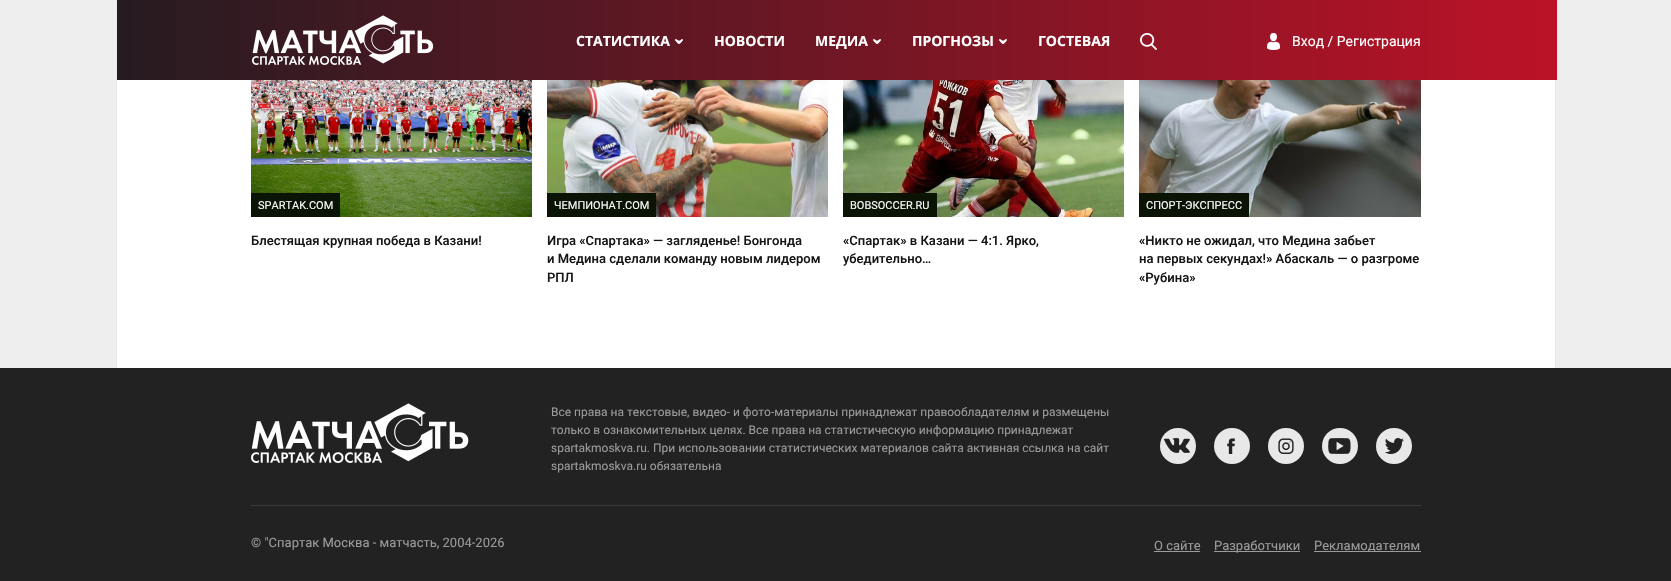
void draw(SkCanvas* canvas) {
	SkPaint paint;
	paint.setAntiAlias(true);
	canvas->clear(0xffeeeeee);
	paint.setColor(0xffffffff);
	canvas->drawRect(SkRect::MakeXYWH(117, 80, 1438, 288), paint);
	paint.setColor(0xffe8e8e8);
	canvas->drawRect(SkRect::MakeXYWH(1555, 80, 1, 288), paint);
	canvas->drawRect(SkRect::MakeXYWH(116, 0, 1, 368), paint);
	{
		const SkColor colors[] = {0xff261b21, 0xffbb1227};
		const float stops[] = {0, 1};
		const SkPoint ends[] = {{117, 40}, {1557, 40}};
		paint.setShader(SkGradientShader::MakeLinear(ends, colors, stops, 2, SkTileMode::kClamp));
		paint.setAlpha(255);
	}
	canvas->drawRect(SkRect::MakeXYWH(117, 0, 1440, 80), paint);
	canvas->drawImageRect(SkImages::DeferredFromEncodedData(SkData::MakeFromFileName("img1.png")), SkRect::MakeXYWH(252, 15, 182, 50), SkSamplingOptions());
	SkFont f1(fontMgr->matchFamilyStyle("Open Sans", SkFontStyle::Bold()), 14);
	f1.setSubpixel(true);
	paint.setShader(nullptr);
	paint.setColor(0xffffffff);
	canvas->drawString("СТАТИСТИКА", 576, 46, f1, paint);
	canvas->drawImageRect(SkImages::DeferredFromEncodedData(SkData::MakeFromFileName("img2.png")), SkRect::MakeXYWH(675, 39, 8, 5), SkSamplingOptions());
	canvas->drawString("НОВОСТИ", 714, 46, f1, paint);
	canvas->drawString("МЕДИА", 815, 46, f1, paint);
	canvas->drawImageRect(SkImages::DeferredFromEncodedData(SkData::MakeFromFileName("img3.png")), SkRect::MakeXYWH(873, 39, 8, 5), SkSamplingOptions());
	canvas->drawString("ПРОГНОЗЫ", 912, 46, f1, paint);
	canvas->drawImageRect(SkImages::DeferredFromEncodedData(SkData::MakeFromFileName("img4.png")), SkRect::MakeXYWH(999, 39, 8, 5), SkSamplingOptions());
	canvas->drawString("ГОСТЕВАЯ", 1038, 46, f1, paint);
	canvas->drawImageRect(SkImages::DeferredFromEncodedData(SkData::MakeFromFileName("img5.png")), SkRect::MakeXYWH(1140, 33, 17, 17), SkSamplingOptions());
	canvas->drawImageRect(SkImages::DeferredFromEncodedData(SkData::MakeFromFileName("img6.png")), SkRect::MakeXYWH(1267, 33, 13, 17), SkSamplingOptions());
	SkFont f2(fontMgr->matchFamilyStyle("Roboto", SkFontStyle::Normal()), 14);
	f2.setSubpixel(true);
	canvas->drawString("Вход / Регистрация", 1292, 46, f2, paint);
	canvas->drawImageRect(SkImages::DeferredFromEncodedData(SkData::MakeFromFileName("img7.png")), SkRect::MakeXYWH(251, 80, 281, 137), SkSamplingOptions());
	paint.setColor(0xff0a1304);
	canvas->drawRect(SkRect::MakeXYWH(251, 193, 89, 24), paint);
	SkFont f3(fontMgr->matchFamilyStyle("Roboto", SkFontStyle::Normal()), 11);
	f3.setSubpixel(true);
	paint.setColor(0xffffffff);
	canvas->drawString("SPARTAK.COM", 258, 209, f3, paint);
	SkFont f4(fontMgr->matchFamilyStyle("Roboto", SkFontStyle(500, SkFontStyle::kNormal_Width, SkFontStyle::kUpright_Slant)), 13);
	f4.setSubpixel(true);
	paint.setColor(0xff151515);
	canvas->drawString("Блестящая крупная победа в Казани!", 251, 245, f4, paint);
	canvas->drawImageRect(SkImages::DeferredFromEncodedData(SkData::MakeFromFileName("img8.png")), SkRect::MakeXYWH(547, 80, 281, 137), SkSamplingOptions());
	paint.setColor(0xff0a1304);
	canvas->drawRect(SkRect::MakeXYWH(547, 193, 109, 24), paint);
	paint.setColor(0xffffffff);
	canvas->drawString("ЧЕМПИОНАТ.COM", 554, 209, f3, paint);
	paint.setColor(0xff151515);
	canvas->drawString("Игра «Спартака» — загляденье! Бонгонда", 547, 245, f4, paint);
	canvas->drawString("и Медина сделали команду новым лидером", 547, 263, f4, paint);
	canvas->drawString("РПЛ", 547, 282, f4, paint);
	canvas->drawImageRect(SkImages::DeferredFromEncodedData(SkData::MakeFromFileName("img9.png")), SkRect::MakeXYWH(843, 80, 281, 137), SkSamplingOptions());
	paint.setColor(0xff0a1304);
	canvas->drawRect(SkRect::MakeXYWH(843, 193, 94, 24), paint);
	paint.setColor(0xffffffff);
	canvas->drawString("BOBSOCCER.RU", 850, 209, f3, paint);
	paint.setColor(0xff151515);
	canvas->drawString("«Спартак» в Казани — 4:1. Ярко,", 843, 245, f4, paint);
	canvas->drawString("убедительно…", 843, 263, f4, paint);
	canvas->drawImageRect(SkImages::DeferredFromEncodedData(SkData::MakeFromFileName("img10.png")), SkRect::MakeXYWH(1139, 80, 282, 137), SkSamplingOptions());
	paint.setColor(0xff0a1304);
	canvas->drawRect(SkRect::MakeXYWH(1139, 193, 110, 24), paint);
	paint.setColor(0xffffffff);
	canvas->drawString("СПОРТ-ЭКСПРЕСС", 1146, 209, f3, paint);
	paint.setColor(0xff151515);
	canvas->drawString("«Никто не ожидал, что Медина забьет", 1139, 245, f4, paint);
	canvas->drawString("на первых секундах!» Абаскаль — о разгроме", 1139, 263, f4, paint);
	canvas->drawString("«Рубина»", 1139, 282, f4, paint);
	paint.setColor(0xff222222);
	canvas->drawRect(SkRect::MakeXYWH(0, 368, 1671, 213), paint);
	canvas->drawImageRect(SkImages::DeferredFromEncodedData(SkData::MakeFromFileName("img11.png")), SkRect::MakeXYWH(251, 403, 218, 60), SkSamplingOptions());
	SkFont f5(fontMgr->matchFamilyStyle("Roboto", SkFontStyle::Normal()), 12);
	f5.setSubpixel(true);
	paint.setColor(0xff9c9c9c);
	canvas->drawString("Все права на текстовые, видео- и фото-материалы принадлежат правообладателям и размещены", 551, 416, f5, paint);
	canvas->drawString("только в ознакомительных целях. Все права на статистическую информацию принадлежат", 551, 434, f5, paint);
	canvas->drawString("spartakmoskva.ru. При использовании статистических материалов сайта активная ссылка на сайт", 551, 452, f5, paint);
	canvas->drawString("spartakmoskva.ru обязательна", 551, 470, f5, paint);
	paint.setColor(0xffe8e8e8);
	canvas->drawCircle(1178, 446, 18, paint);
	canvas->drawImageRect(SkImages::DeferredFromEncodedData(SkData::MakeFromFileName("img12.png")), SkRect::MakeXYWH(1164, 438, 26, 15), SkSamplingOptions());
	canvas->drawCircle(1232, 446, 18, paint);
	canvas->drawImageRect(SkImages::DeferredFromEncodedData(SkData::MakeFromFileName("img13.png")), SkRect::MakeXYWH(1227, 438, 8, 16), SkSamplingOptions());
	canvas->drawCircle(1286, 446, 18, paint);
	canvas->drawImageRect(SkImages::DeferredFromEncodedData(SkData::MakeFromFileName("img14.png")), SkRect::MakeXYWH(1278, 438, 16, 16), SkSamplingOptions());
	canvas->drawCircle(1340, 446, 18, paint);
	canvas->drawImageRect(SkImages::DeferredFromEncodedData(SkData::MakeFromFileName("img15.png")), SkRect::MakeXYWH(1328, 438, 23, 16), SkSamplingOptions());
	canvas->drawCircle(1394, 446, 18, paint);
	canvas->drawImageRect(SkImages::DeferredFromEncodedData(SkData::MakeFromFileName("img16.png")), SkRect::MakeXYWH(1385, 438, 19, 16), SkSamplingOptions());
	paint.setColor(0xff393939);
	canvas->drawRect(SkRect::MakeXYWH(251, 505, 1170, 1), paint);
	SkFont f6(fontMgr->matchFamilyStyle("Roboto", SkFontStyle::Normal()), 13);
	f6.setSubpixel(true);
	paint.setColor(0xff9c9c9c);
	canvas->drawString("© \"Спартак Москва - матчасть, 2004-2026", 251, 547, f6, paint);
	canvas->drawString("О сайте", 1154, 550, f6, paint);
	canvas->drawRect(SkRect::MakeXYWH(1154, 551, 46, 1), paint);
	canvas->drawRect(SkRect::MakeXYWH(1214, 551, 86, 1), paint);
	canvas->drawString("Разработчики", 1214, 550, f6, paint);
	canvas->drawRect(SkRect::MakeXYWH(1314, 551, 107, 1), paint);
	canvas->drawString("Рекламодателям", 1314, 550, f6, paint);
}
